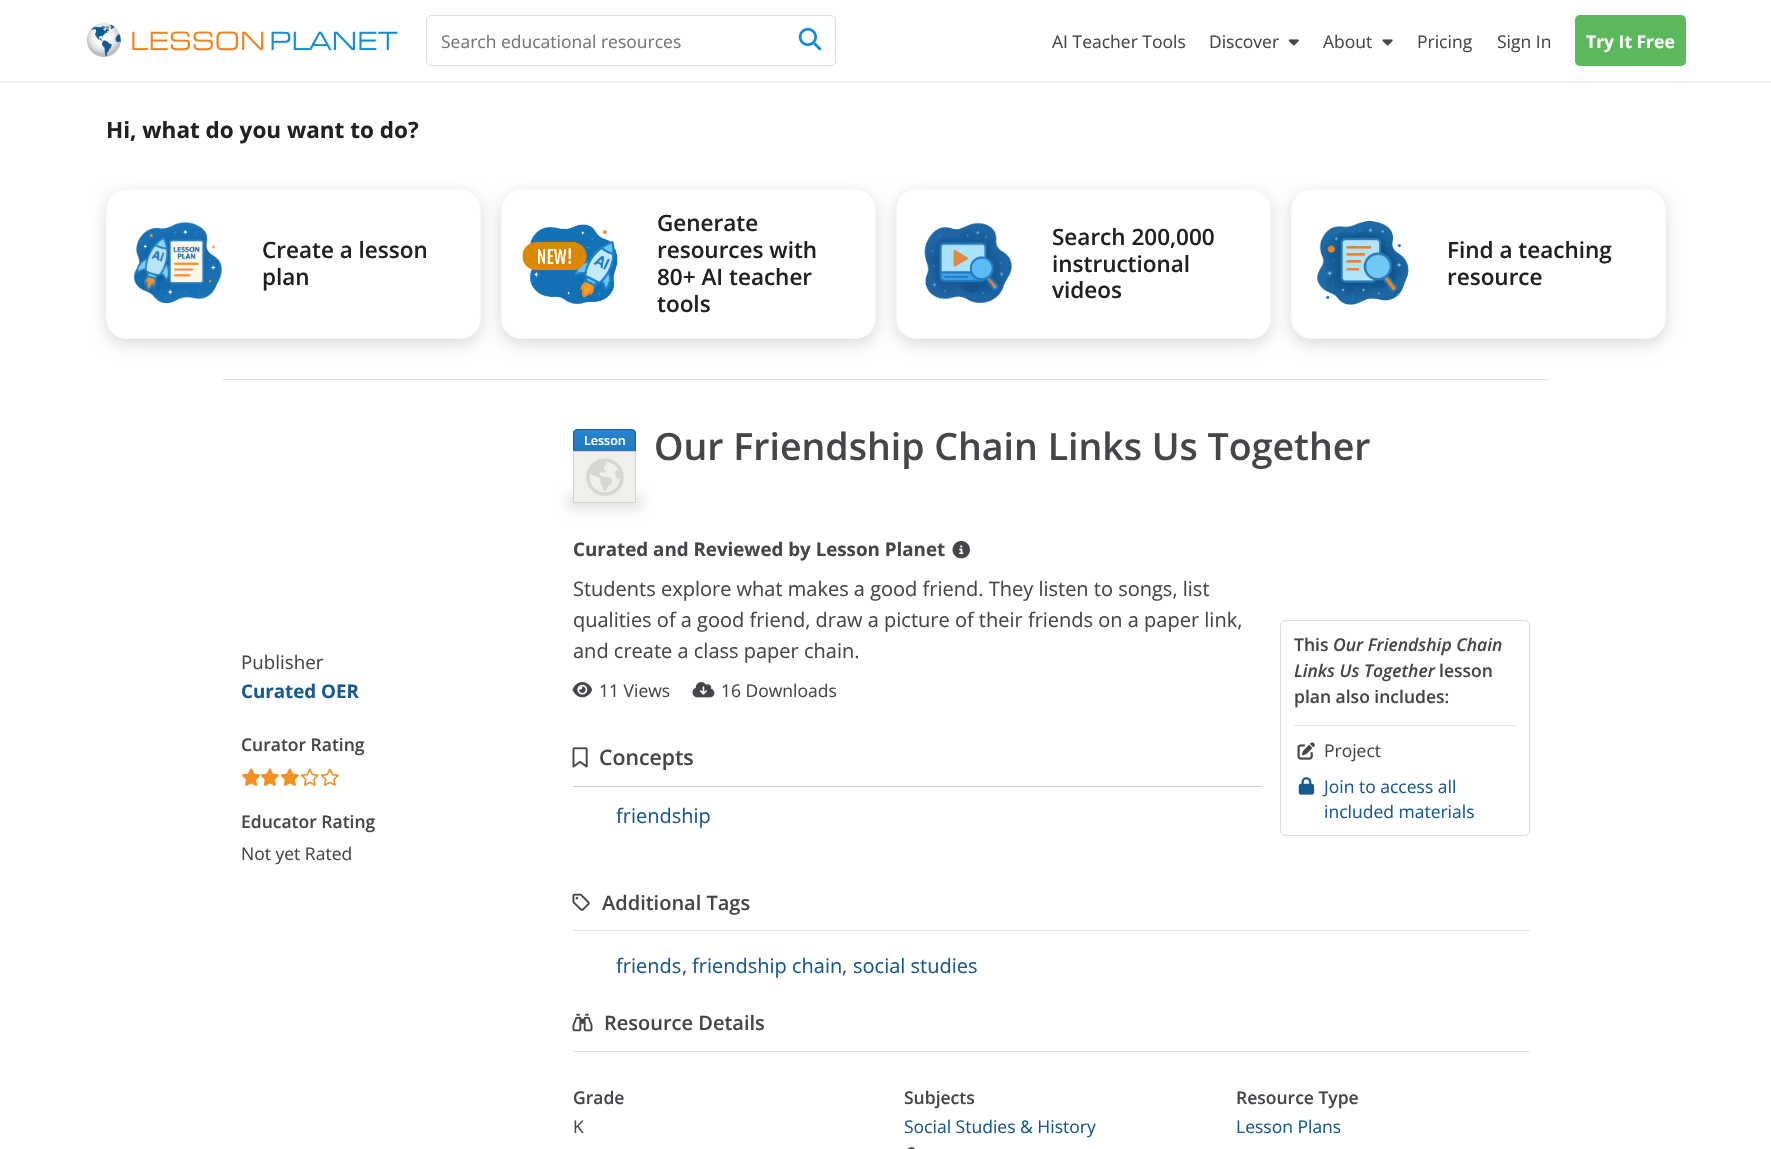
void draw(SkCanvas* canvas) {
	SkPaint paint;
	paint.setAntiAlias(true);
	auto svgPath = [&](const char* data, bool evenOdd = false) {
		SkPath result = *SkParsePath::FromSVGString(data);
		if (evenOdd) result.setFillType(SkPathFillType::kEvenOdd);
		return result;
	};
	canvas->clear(0xffffffff);
	paint.setColor(0xfff1f1f4);
	canvas->drawRect(SkRect::MakeXYWH(0, 81, 1771, 2), paint);
	canvas->drawImageRect(SkImages::DeferredFromEncodedData(SkData::MakeFromFileName("img1.png")), SkRect::MakeXYWH(86, 23, 312, 34), SkSamplingOptions());
	paint.setStroke(true);
	paint.setStrokeWidth(1);
	paint.setColor(0xffdcdce3);
	canvas->drawRoundRect(SkRect::MakeXYWH(426.5, 15.5, 409, 50), 4.5, 4.5, paint);
	SkFont f1(fontMgr->matchFamilyStyle("Open Sans", SkFontStyle::Normal()), 17.5);
	f1.setSubpixel(true);
	paint.setStroke(false);
	paint.setColor(0xff757575);
	canvas->drawString("Search educational resources", 441, 48, f1, paint);
	canvas->drawImageRect(SkImages::DeferredFromEncodedData(SkData::MakeFromFileName("img2.png")), SkRect::MakeXYWH(798, 27, 24, 24), SkSamplingOptions());
	paint.setColor(0xff45454a);
	canvas->drawString("AI Teacher Tools", 1052, 48, f1, paint);
	canvas->drawString("Discover", 1209, 48, f1, paint);
	canvas->drawImageRect(SkImages::DeferredFromEncodedData(SkData::MakeFromFileName("img3.png")), SkRect::MakeXYWH(1288, 39, 11, 7), SkSamplingOptions());
	canvas->drawString("About", 1323, 48, f1, paint);
	canvas->drawImageRect(SkImages::DeferredFromEncodedData(SkData::MakeFromFileName("img4.png")), SkRect::MakeXYWH(1382, 39, 11, 7), SkSamplingOptions());
	canvas->drawString("Pricing", 1417, 48, f1, paint);
	canvas->drawString("Sign In", 1497, 48, f1, paint);
	paint.setColor(0xff5cb85c);
	canvas->drawRoundRect(SkRect::MakeXYWH(1575, 15, 111, 51), 5, 5, paint);
	SkFont f2(fontMgr->matchFamilyStyle("Open Sans", SkFontStyle::Bold()), 17.5);
	f2.setSubpixel(true);
	paint.setColor(0xffffffff);
	canvas->drawString("Try It Free", 1586, 48, f2, paint);
	SkFont f3(fontMgr->matchFamilyStyle("Open Sans", SkFontStyle::Bold()), 22.5);
	f3.setSubpixel(true);
	paint.setColor(0xff212121);
	canvas->drawString("Hi, what do you want to do?", 106, 138, f3, paint);
	paint.setColor(0x26000000);
	paint.setMaskFilter(SkMaskFilter::MakeBlur(kNormal_SkBlurStyle, 7.5));
	canvas->drawRoundRect(SkRect::MakeXYWH(106, 194, 375, 150), 20, 20, paint);
	paint.setMaskFilter(nullptr);
	paint.setColor(0xffffffff);
	canvas->drawRoundRect(SkRect::MakeXYWH(106.5, 189.5, 374, 149), 19.5, 19.5, paint);
	paint.setStroke(true);
	paint.setColor(0xfff7f8f9);
	canvas->drawRoundRect(SkRect::MakeXYWH(106.5, 189.5, 374, 149), 19.5, 19.5, paint);
	canvas->drawImageRect(SkImages::DeferredFromEncodedData(SkData::MakeFromFileName("img5.png")), SkRect::MakeXYWH(133, 222, 89, 82), SkSamplingOptions());
	SkFont f4(fontMgr->matchFamilyStyle("Open Sans", SkFontStyle(600, SkFontStyle::kNormal_Width, SkFontStyle::kUpright_Slant)), 22.5);
	f4.setSubpixel(true);
	paint.setStroke(false);
	paint.setColor(0xff212121);
	canvas->drawString("Create a lesson", 262, 258, f4, paint);
	canvas->drawString("plan", 262, 285, f4, paint);
	paint.setColor(0x26000000);
	paint.setMaskFilter(SkMaskFilter::MakeBlur(kNormal_SkBlurStyle, 7.5));
	canvas->drawRoundRect(SkRect::MakeXYWH(501, 194, 375, 150), 20, 20, paint);
	paint.setMaskFilter(nullptr);
	paint.setColor(0xffffffff);
	canvas->drawRoundRect(SkRect::MakeXYWH(501.5, 189.5, 374, 149), 19.5, 19.5, paint);
	paint.setStroke(true);
	paint.setColor(0xfff7f8f9);
	canvas->drawRoundRect(SkRect::MakeXYWH(501.5, 189.5, 374, 149), 19.5, 19.5, paint);
	canvas->drawImageRect(SkImages::DeferredFromEncodedData(SkData::MakeFromFileName("img6.png")), SkRect::MakeXYWH(522, 224, 96, 80), SkSamplingOptions());
	paint.setStroke(false);
	paint.setColor(0xff212121);
	canvas->drawString("Generate", 657, 231, f4, paint);
	canvas->drawString("resources with", 657, 258, f4, paint);
	canvas->drawString("80+ AI teacher", 657, 285, f4, paint);
	canvas->drawString("tools", 657, 312, f4, paint);
	paint.setColor(0x26000000);
	paint.setMaskFilter(SkMaskFilter::MakeBlur(kNormal_SkBlurStyle, 7.5));
	canvas->drawRoundRect(SkRect::MakeXYWH(896, 194, 375, 150), 20, 20, paint);
	paint.setMaskFilter(nullptr);
	paint.setColor(0xffffffff);
	canvas->drawRoundRect(SkRect::MakeXYWH(896.5, 189.5, 374, 149), 19.5, 19.5, paint);
	paint.setStroke(true);
	paint.setColor(0xfff7f8f9);
	canvas->drawRoundRect(SkRect::MakeXYWH(896.5, 189.5, 374, 149), 19.5, 19.5, paint);
	canvas->drawImageRect(SkImages::DeferredFromEncodedData(SkData::MakeFromFileName("img7.png")), SkRect::MakeXYWH(924, 222, 88, 81), SkSamplingOptions());
	paint.setStroke(false);
	paint.setColor(0xff212121);
	canvas->drawString("Search 200,000", 1052, 245, f4, paint);
	canvas->drawString("instructional", 1052, 272, f4, paint);
	canvas->drawString("videos", 1052, 298, f4, paint);
	paint.setColor(0x26000000);
	paint.setMaskFilter(SkMaskFilter::MakeBlur(kNormal_SkBlurStyle, 7.5));
	canvas->drawRoundRect(SkRect::MakeXYWH(1291, 194, 375, 150), 20, 20, paint);
	paint.setMaskFilter(nullptr);
	paint.setColor(0xffffffff);
	canvas->drawRoundRect(SkRect::MakeXYWH(1291.5, 189.5, 374, 149), 19.5, 19.5, paint);
	paint.setStroke(true);
	paint.setColor(0xfff7f8f9);
	canvas->drawRoundRect(SkRect::MakeXYWH(1291.5, 189.5, 374, 149), 19.5, 19.5, paint);
	canvas->drawImageRect(SkImages::DeferredFromEncodedData(SkData::MakeFromFileName("img8.png")), SkRect::MakeXYWH(1317, 221, 92, 84), SkSamplingOptions());
	paint.setStroke(false);
	paint.setColor(0xff212121);
	canvas->drawString("Find a teaching", 1447, 258, f4, paint);
	canvas->drawString("resource", 1447, 285, f4, paint);
	paint.setColor(0xffdddddd);
	canvas->drawRect(SkRect::MakeXYWH(223, 379, 1326, 1), paint);
	SkFont f5(fontMgr->matchFamilyStyle("Open Sans", SkFontStyle::Normal()), 18.75);
	f5.setSubpixel(true);
	paint.setColor(0xff45454a);
	canvas->drawString("Publisher", 241, 669, f5, paint);
	SkFont f6(fontMgr->matchFamilyStyle("Open Sans", SkFontStyle::Bold()), 18.75);
	f6.setSubpixel(true);
	paint.setColor(0xff18598f);
	canvas->drawString("Curated OER", 241, 698, f6, paint);
	SkFont f7(fontMgr->matchFamilyStyle("Open Sans", SkFontStyle(600, SkFontStyle::kNormal_Width, SkFontStyle::kUpright_Slant)), 17.5);
	f7.setSubpixel(true);
	paint.setColor(0xff45454a);
	canvas->drawString("Curator Rating", 241, 751, f7, paint);
	canvas->drawImageRect(SkImages::DeferredFromEncodedData(SkData::MakeFromFileName("img9.png")), SkRect::MakeXYWH(242, 768, 19, 18), SkSamplingOptions());
	canvas->drawImageRect(SkImages::DeferredFromEncodedData(SkData::MakeFromFileName("img10.png")), SkRect::MakeXYWH(260, 768, 19, 18), SkSamplingOptions());
	canvas->drawImageRect(SkImages::DeferredFromEncodedData(SkData::MakeFromFileName("img11.png")), SkRect::MakeXYWH(280, 768, 19, 18), SkSamplingOptions());
	canvas->drawImageRect(SkImages::DeferredFromEncodedData(SkData::MakeFromFileName("img12.png")), SkRect::MakeXYWH(300, 768, 19, 18), SkSamplingOptions());
	canvas->drawImageRect(SkImages::DeferredFromEncodedData(SkData::MakeFromFileName("img12.png")), SkRect::MakeXYWH(320, 768, 19, 18), SkSamplingOptions());
	canvas->drawString("Educator Rating", 241, 828, f7, paint);
	canvas->drawString("Not yet Rated", 241, 860, f1, paint);
	canvas->save();
	canvas->clipPath(svgPath("M577 429H632C634 429 636 431 636 433V471H573V433C573 431 575 429 577 429Z"), true);
	{
		const SkColor colors[] = {0xff2584d1, 0xff1f6eae};
		const float stops[] = {0, 1};
		const SkPoint ends[] = {{604, 430}, {604, 470}};
		paint.setShader(SkGradientShader::MakeLinear(ends, colors, stops, 2, SkTileMode::kClamp));
		paint.setAlpha(255);
	}
	canvas->drawRect(SkRect::MakeXYWH(573, 430, 63, 21), paint);
	canvas->restore();
	paint.setStroke(true);
	paint.setShader(nullptr);
	paint.setColor(0xff1b6098);
	canvas->drawPath(svgPath("M577 429.5H632C634 429.5 635.5 431 635.5 433V470.5H573.5V433C573.5 431 575 429.5 577 429.5Z"), paint);
	SkFont f8(fontMgr->matchFamilyStyle("Open Sans", SkFontStyle(600, SkFontStyle::kNormal_Width, SkFontStyle::kUpright_Slant)), 12.5);
	f8.setSubpixel(true);
	paint.setStroke(false);
	paint.setColor(0xffffffff);
	canvas->drawString("Lesson", 584, 445, f8, paint);
	paint.setColor(0x1f000000);
	paint.setMaskFilter(SkMaskFilter::MakeBlur(kNormal_SkBlurStyle, 6));
	canvas->drawRoundRect(SkRect::MakeXYWH(566, 494, 77, 15), 7.5, 7.5, paint);
	paint.setMaskFilter(nullptr);
	paint.setColor(0xfff0efec);
	canvas->drawRect(SkRect::MakeXYWH(573.5, 451.5, 62, 51), paint);
	paint.setStroke(true);
	paint.setColor(0xffd3d1cc);
	canvas->drawRect(SkRect::MakeXYWH(573.5, 451.5, 62, 51), paint);
	canvas->drawImageRect(SkImages::DeferredFromEncodedData(SkData::MakeFromFileName("img13.png")), SkRect::MakeXYWH(586, 458, 38, 38), SkSamplingOptions());
	SkFont f9(fontMgr->matchFamilyStyle("Open Sans", SkFontStyle(600, SkFontStyle::kNormal_Width, SkFontStyle::kUpright_Slant)), 37.5);
	f9.setSubpixel(true);
	paint.setStroke(false);
	paint.setColor(0xff45454a);
	canvas->drawString("Our Friendship Chain Links Us Together", 654, 460, f9, paint);
	canvas->drawString("Curated and Reviewed by Lesson Planet", 573, 556, f6, paint);
	canvas->drawImageRect(SkImages::DeferredFromEncodedData(SkData::MakeFromFileName("img14.png")), SkRect::MakeXYWH(952, 540, 18, 19), SkSamplingOptions());
	SkFont f10(fontMgr->matchFamilyStyle("Open Sans", SkFontStyle::Normal()), 20);
	f10.setSubpixel(true);
	canvas->drawString("Students explore what makes a good friend. They listen to songs, list", 573, 596, f10, paint);
	canvas->drawString("qualities of a good friend, draw a picture of their friends on a paper link,", 573, 627, f10, paint);
	canvas->drawString("and create a class paper chain.", 573, 658, f10, paint);
	canvas->drawImageRect(SkImages::DeferredFromEncodedData(SkData::MakeFromFileName("img15.png")), SkRect::MakeXYWH(572, 682, 21, 16), SkSamplingOptions());
	canvas->drawString("11 Views", 599, 697, f1, paint);
	canvas->drawImageRect(SkImages::DeferredFromEncodedData(SkData::MakeFromFileName("img16.png")), SkRect::MakeXYWH(692, 682, 23, 16), SkSamplingOptions());
	canvas->drawString("16 Downloads", 721, 697, f1, paint);
	paint.setStroke(true);
	paint.setColor(0xffdddddd);
	canvas->drawRoundRect(SkRect::MakeXYWH(1280.5, 620.5, 249, 215), 4.5, 4.5, paint);
	paint.setStroke(false);
	paint.setColor(0xffe1e1e1);
	canvas->drawRect(SkRect::MakeXYWH(1294, 725, 222, 1), paint);
	paint.setColor(0xff45454a);
	canvas->drawString("This", 1294, 651, f7, paint);
	SkFont f11(fontMgr->matchFamilyStyle("Open Sans", SkFontStyle(600, SkFontStyle::kNormal_Width, SkFontStyle::kItalic_Slant)), 17.5);
	f11.setSubpixel(true);
	canvas->drawString("Our Friendship Chain", 1333, 651, f11, paint);
	canvas->drawString("Links Us Together", 1294, 677, f11, paint);
	canvas->drawString("lesson", 1439, 677, f7, paint);
	canvas->drawString("plan also includes:", 1294, 703, f7, paint);
	canvas->drawImageRect(SkImages::DeferredFromEncodedData(SkData::MakeFromFileName("img17.png")), SkRect::MakeXYWH(1297, 742, 18, 18), SkSamplingOptions());
	canvas->drawString("Project", 1324, 757, f1, paint);
	canvas->drawImageRect(SkImages::DeferredFromEncodedData(SkData::MakeFromFileName("img18.png")), SkRect::MakeXYWH(1298, 777, 17, 18), SkSamplingOptions());
	paint.setColor(0xff18598f);
	canvas->drawString("Join to access all", 1324, 793, f1, paint);
	canvas->drawString("included materials", 1324, 818, f1, paint);
	canvas->drawImageRect(SkImages::DeferredFromEncodedData(SkData::MakeFromFileName("img19.png")), SkRect::MakeXYWH(572, 747, 16, 21), SkSamplingOptions());
	SkFont f12(fontMgr->matchFamilyStyle("Open Sans", SkFontStyle(600, SkFontStyle::kNormal_Width, SkFontStyle::kUpright_Slant)), 21.25);
	f12.setSubpixel(true);
	paint.setColor(0xff45454a);
	canvas->drawString("Concepts", 599, 765, f12, paint);
	paint.setColor(0xffcccac4);
	canvas->drawRect(SkRect::MakeXYWH(573, 786, 688, 1), paint);
	paint.setColor(0xff18598f);
	canvas->drawString("friendship", 616, 823, f10, paint);
	paint.setColor(0xffe1e1e1);
	canvas->drawRect(SkRect::MakeXYWH(573, 930, 957, 1), paint);
	canvas->drawImageRect(SkImages::DeferredFromEncodedData(SkData::MakeFromFileName("img20.png")), SkRect::MakeXYWH(572, 893, 18, 18), SkSamplingOptions());
	SkFont f13(fontMgr->matchFamilyStyle("Open Sans", SkFontStyle(600, SkFontStyle::kNormal_Width, SkFontStyle::kUpright_Slant)), 20);
	f13.setSubpixel(true);
	paint.setColor(0xff45454a);
	canvas->drawString("Additional Tags", 602, 910, f13, paint);
	paint.setColor(0xff18598f);
	canvas->drawString("friends", 616, 973, f10, paint);
	paint.setColor(0xff45454a);
	canvas->drawString(",", 682, 973, f10, paint);
	paint.setColor(0xff18598f);
	canvas->drawString("friendship chain", 692, 973, f10, paint);
	paint.setColor(0xff45454a);
	canvas->drawString(",", 842, 973, f10, paint);
	paint.setColor(0xff18598f);
	canvas->drawString("social studies", 853, 973, f10, paint);
	paint.setColor(0xffe1e1e1);
	canvas->drawRect(SkRect::MakeXYWH(573, 1051, 957, 1), paint);
	canvas->drawImageRect(SkImages::DeferredFromEncodedData(SkData::MakeFromFileName("img21.png")), SkRect::MakeXYWH(572, 1013, 21, 19), SkSamplingOptions());
	paint.setColor(0xff45454a);
	canvas->drawString("Resource Details", 604, 1030, f13, paint);
	canvas->drawString("Grade", 573, 1104, f7, paint);
	canvas->drawString("K", 573, 1133, f1, paint);
	canvas->drawString("Subjects", 904, 1104, f7, paint);
	paint.setColor(0xff18598f);
	canvas->drawString("Social Studies & History", 904, 1133, f1, paint);
	canvas->drawImageRect(SkImages::DeferredFromEncodedData(SkData::MakeFromFileName("img22.png")), SkRect::MakeXYWH(907, 1147, 9, 2), SkSamplingOptions());
	paint.setColor(0xff45454a);
	canvas->drawString("Resource Type", 1236, 1104, f7, paint);
	paint.setColor(0xff18598f);
	canvas->drawString("Lesson Plans", 1236, 1133, f1, paint);
}
